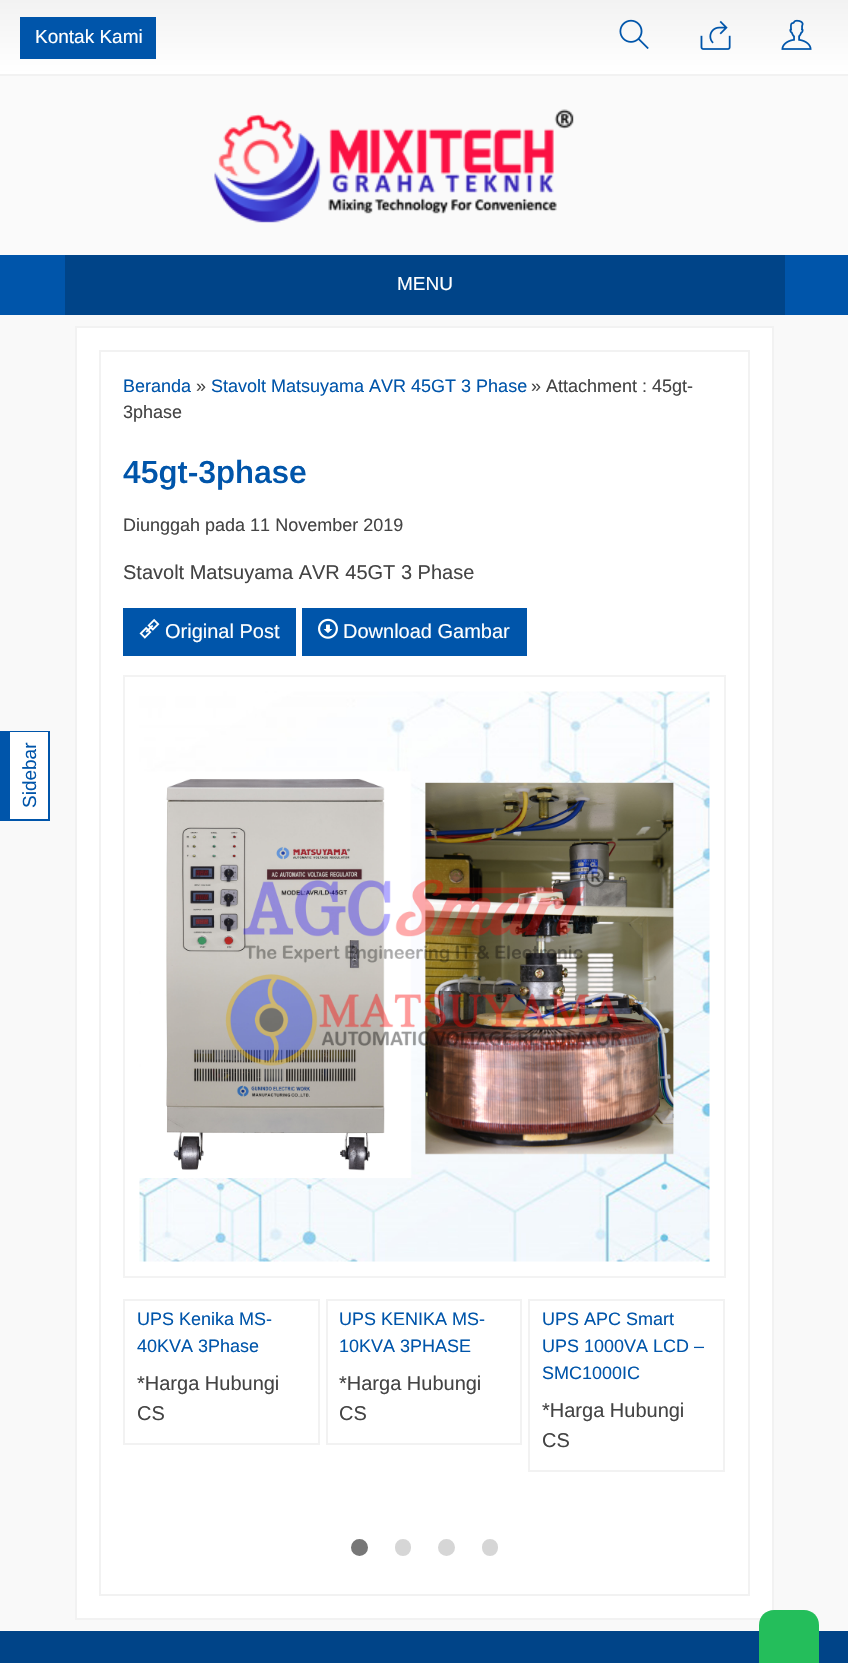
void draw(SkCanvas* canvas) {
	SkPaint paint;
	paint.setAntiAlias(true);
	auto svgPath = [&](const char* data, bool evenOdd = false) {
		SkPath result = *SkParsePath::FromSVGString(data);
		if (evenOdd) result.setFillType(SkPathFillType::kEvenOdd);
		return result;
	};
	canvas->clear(0xff0055aa);
	{
		const SkColor colors[] = {0xfff2f2f2, 0xffffffff};
		const float stops[] = {0, 1};
		const SkPoint ends[] = {{425, 0}, {425, 74}};
		paint.setShader(SkGradientShader::MakeLinear(ends, colors, stops, 2, SkTileMode::kClamp));
		paint.setAlpha(255);
	}
	canvas->drawRect(SkRect::MakeXYWH(0, 0, 848, 74), paint);
	paint.setShader(nullptr);
	paint.setColor(0xfff2f2f2);
	canvas->drawRect(SkRect::MakeXYWH(0, 74, 848, 2), paint);
	paint.setColor(0xff0055aa);
	canvas->drawRect(SkRect::MakeXYWH(20, 17, 136, 42), paint);
	SkFont f1(fontMgr->matchFamilyStyle("Arimo", SkFontStyle::Normal()), 19);
	f1.setSubpixel(true);
	paint.setColor(0xffffffff);
	canvas->drawString("Kontak Kami", 35, 43, f1, paint);
	canvas->drawImageRect(SkImages::DeferredFromEncodedData(SkData::MakeFromFileName("img1.png")), SkRect::MakeXYWH(619, 19, 30, 30), SkSamplingOptions());
	canvas->drawImageRect(SkImages::DeferredFromEncodedData(SkData::MakeFromFileName("img2.png")), SkRect::MakeXYWH(700, 20, 31, 30), SkSamplingOptions());
	canvas->drawImageRect(SkImages::DeferredFromEncodedData(SkData::MakeFromFileName("img3.png")), SkRect::MakeXYWH(781, 19, 31, 31), SkSamplingOptions());
	paint.setColor(0xfffafafa);
	canvas->drawRect(SkRect::MakeXYWH(0, 76, 848, 179), paint);
	canvas->drawImageRect(SkImages::DeferredFromEncodedData(SkData::MakeFromFileName("img4.png")), SkRect::MakeXYWH(214, 109, 360, 114), SkSamplingOptions());
	paint.setColor(0xff004488);
	canvas->drawRect(SkRect::MakeXYWH(65, 255, 720, 60), paint);
	paint.setColor(0xffffffff);
	canvas->drawString("MENU", 397, 290, f1, paint);
	paint.setColor(0xfff9f9f9);
	canvas->drawRect(SkRect::MakeXYWH(0, 315, 848, 1316), paint);
	paint.setColor(0xffffffff);
	canvas->drawRect(SkRect::MakeXYWH(10, 732, 38, 87), paint);
	paint.setColor(0xff0055aa);
	canvas->drawRect(SkRect::MakeXYWH(0, 732, 10, 87), paint);
	canvas->drawRect(SkRect::MakeXYWH(0, 731, 50, 1), paint);
	canvas->drawRect(SkRect::MakeXYWH(48, 731, 2, 90), paint);
	canvas->drawRect(SkRect::MakeXYWH(0, 819, 50, 2), paint);
	canvas->save();
	canvas->rotate(-90, 36, 808);
	canvas->drawString("Sidebar", 36, 808, f1, paint);
	canvas->restore();
	paint.setColor(0xffffffff);
	canvas->drawRect(SkRect::MakeXYWH(76, 327, 697, 1292), paint);
	paint.setStroke(true);
	paint.setStrokeWidth(2);
	paint.setColor(0xfff2f2f2);
	canvas->drawRect(SkRect::MakeXYWH(76, 327, 697, 1292), paint);
	canvas->drawRect(SkRect::MakeXYWH(100, 351, 649, 1244), paint);
	SkFont f2(fontMgr->matchFamilyStyle("Arimo", SkFontStyle::Normal()), 18);
	f2.setSubpixel(true);
	paint.setStroke(false);
	paint.setColor(0xff0055aa);
	canvas->drawString("Beranda", 123, 392, f2, paint);
	paint.setColor(0xff444444);
	canvas->drawString("»", 196, 392, f2, paint);
	paint.setColor(0xff0055aa);
	canvas->drawString("Stavolt Matsuyama AVR 45GT 3 Phase", 211, 392, f2, paint);
	paint.setColor(0xff444444);
	canvas->drawString("» Attachment : 45gt-", 531, 392, f2, paint);
	canvas->drawString("3phase", 123, 418, f2, paint);
	SkFont f3(fontMgr->matchFamilyStyle("Arimo", SkFontStyle(600, SkFontStyle::kNormal_Width, SkFontStyle::kUpright_Slant)), 32);
	f3.setSubpixel(true);
	paint.setColor(0xff0055aa);
	canvas->drawString("45gt-3phase", 123, 483, f3, paint);
	paint.setColor(0xff444444);
	canvas->drawString("Diunggah pada 11 November 2019", 123, 531, f2, paint);
	SkFont f4(fontMgr->matchFamilyStyle("Arimo", SkFontStyle::Normal()), 20);
	f4.setSubpixel(true);
	canvas->drawString("Stavolt Matsuyama AVR 45GT 3 Phase", 123, 579, f4, paint);
	paint.setColor(0xff0055aa);
	canvas->drawRect(SkRect::MakeXYWH(123, 608, 173, 48), paint);
	canvas->drawImageRect(SkImages::DeferredFromEncodedData(SkData::MakeFromFileName("img5.png")), SkRect::MakeXYWH(139, 618, 21, 21), SkSamplingOptions());
	paint.setColor(0xffffffff);
	canvas->drawString("Original Post", 165, 638, f4, paint);
	paint.setColor(0xff0055aa);
	canvas->drawRect(SkRect::MakeXYWH(302, 608, 225, 48), paint);
	canvas->drawImageRect(SkImages::DeferredFromEncodedData(SkData::MakeFromFileName("img6.png")), SkRect::MakeXYWH(318, 618, 20, 21), SkSamplingOptions());
	paint.setColor(0xffffffff);
	canvas->drawString("Download Gambar", 343, 638, f4, paint);
	paint.setStroke(true);
	paint.setColor(0xfff3f3f3);
	canvas->drawRect(SkRect::MakeXYWH(124, 676, 601, 601), paint);
	canvas->drawImageRect(SkImages::DeferredFromEncodedData(SkData::MakeFromFileName("img7.png")), SkRect::MakeXYWH(139, 691, 571, 571), SkSamplingOptions());
	paint.setColor(0xfff2f2f2);
	canvas->drawRect(SkRect::MakeXYWH(124, 1300, 195, 144), paint);
	paint.setStroke(false);
	paint.setColor(0xff0055aa);
	canvas->drawString("UPS Kenika MS-", 137, 1325, f2, paint);
	canvas->drawString("40KVA 3Phase", 137, 1352, f2, paint);
	paint.setColor(0xff444444);
	canvas->drawString("*Harga Hubungi", 137, 1390, f4, paint);
	canvas->drawString("CS", 137, 1420, f4, paint);
	paint.setStroke(true);
	paint.setColor(0xfff2f2f2);
	canvas->drawRect(SkRect::MakeXYWH(327, 1300, 194, 144), paint);
	paint.setStroke(false);
	paint.setColor(0xff0055aa);
	canvas->drawString("UPS KENIKA MS-", 339, 1325, f2, paint);
	canvas->drawString("10KVA 3PHASE", 339, 1352, f2, paint);
	paint.setColor(0xff444444);
	canvas->drawString("*Harga Hubungi", 339, 1390, f4, paint);
	canvas->drawString("CS", 339, 1420, f4, paint);
	paint.setStroke(true);
	paint.setColor(0xfff2f2f2);
	canvas->drawRect(SkRect::MakeXYWH(529, 1300, 195, 171), paint);
	paint.setStroke(false);
	paint.setColor(0xff0055aa);
	canvas->drawString("UPS APC Smart", 542, 1325, f2, paint);
	canvas->drawString("UPS 1000VA LCD –", 542, 1352, f2, paint);
	canvas->drawString("SMC1000IC", 542, 1379, f2, paint);
	paint.setColor(0xff444444);
	canvas->drawString("*Harga Hubungi", 542, 1417, f4, paint);
	canvas->drawString("CS", 542, 1447, f4, paint);
	paint.setColor(0xff777777);
	canvas->drawCircle(359.5, 1547.5, 10, paint);
	paint.setStroke(true);
	paint.setStrokeWidth(3);
	paint.setColor(0xffffffff);
	canvas->drawCircle(359.5, 1547.5, 10, paint);
	paint.setStroke(false);
	paint.setColor(0xffd6d6d6);
	canvas->drawRoundRect(SkRect::MakeXYWH(393.5, 1537.5, 19, 20), 9.5, 9.5, paint);
	paint.setStroke(true);
	paint.setColor(0xffffffff);
	canvas->drawRoundRect(SkRect::MakeXYWH(393.5, 1537.5, 19, 20), 9.5, 9.5, paint);
	paint.setStroke(false);
	paint.setColor(0xffd6d6d6);
	canvas->drawCircle(446.5, 1547.5, 10, paint);
	paint.setStroke(true);
	paint.setColor(0xffffffff);
	canvas->drawCircle(446.5, 1547.5, 10, paint);
	paint.setStroke(false);
	paint.setColor(0xffd6d6d6);
	canvas->drawRoundRect(SkRect::MakeXYWH(480.5, 1537.5, 19, 20), 9.5, 9.5, paint);
	paint.setStroke(true);
	paint.setColor(0xffffffff);
	canvas->drawRoundRect(SkRect::MakeXYWH(480.5, 1537.5, 19, 20), 9.5, 9.5, paint);
	paint.setStroke(false);
	paint.setColor(0xff004488);
	canvas->drawRect(SkRect::MakeXYWH(0, 1631, 848, 32), paint);
	paint.setColor(0xff24be5b);
	canvas->drawPath(svgPath("M774 1610H804C812.5 1610 819 1616.5 819 1625V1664H759V1625C759 1616.5 765.5 1610 774 1610Z"), paint);
}
